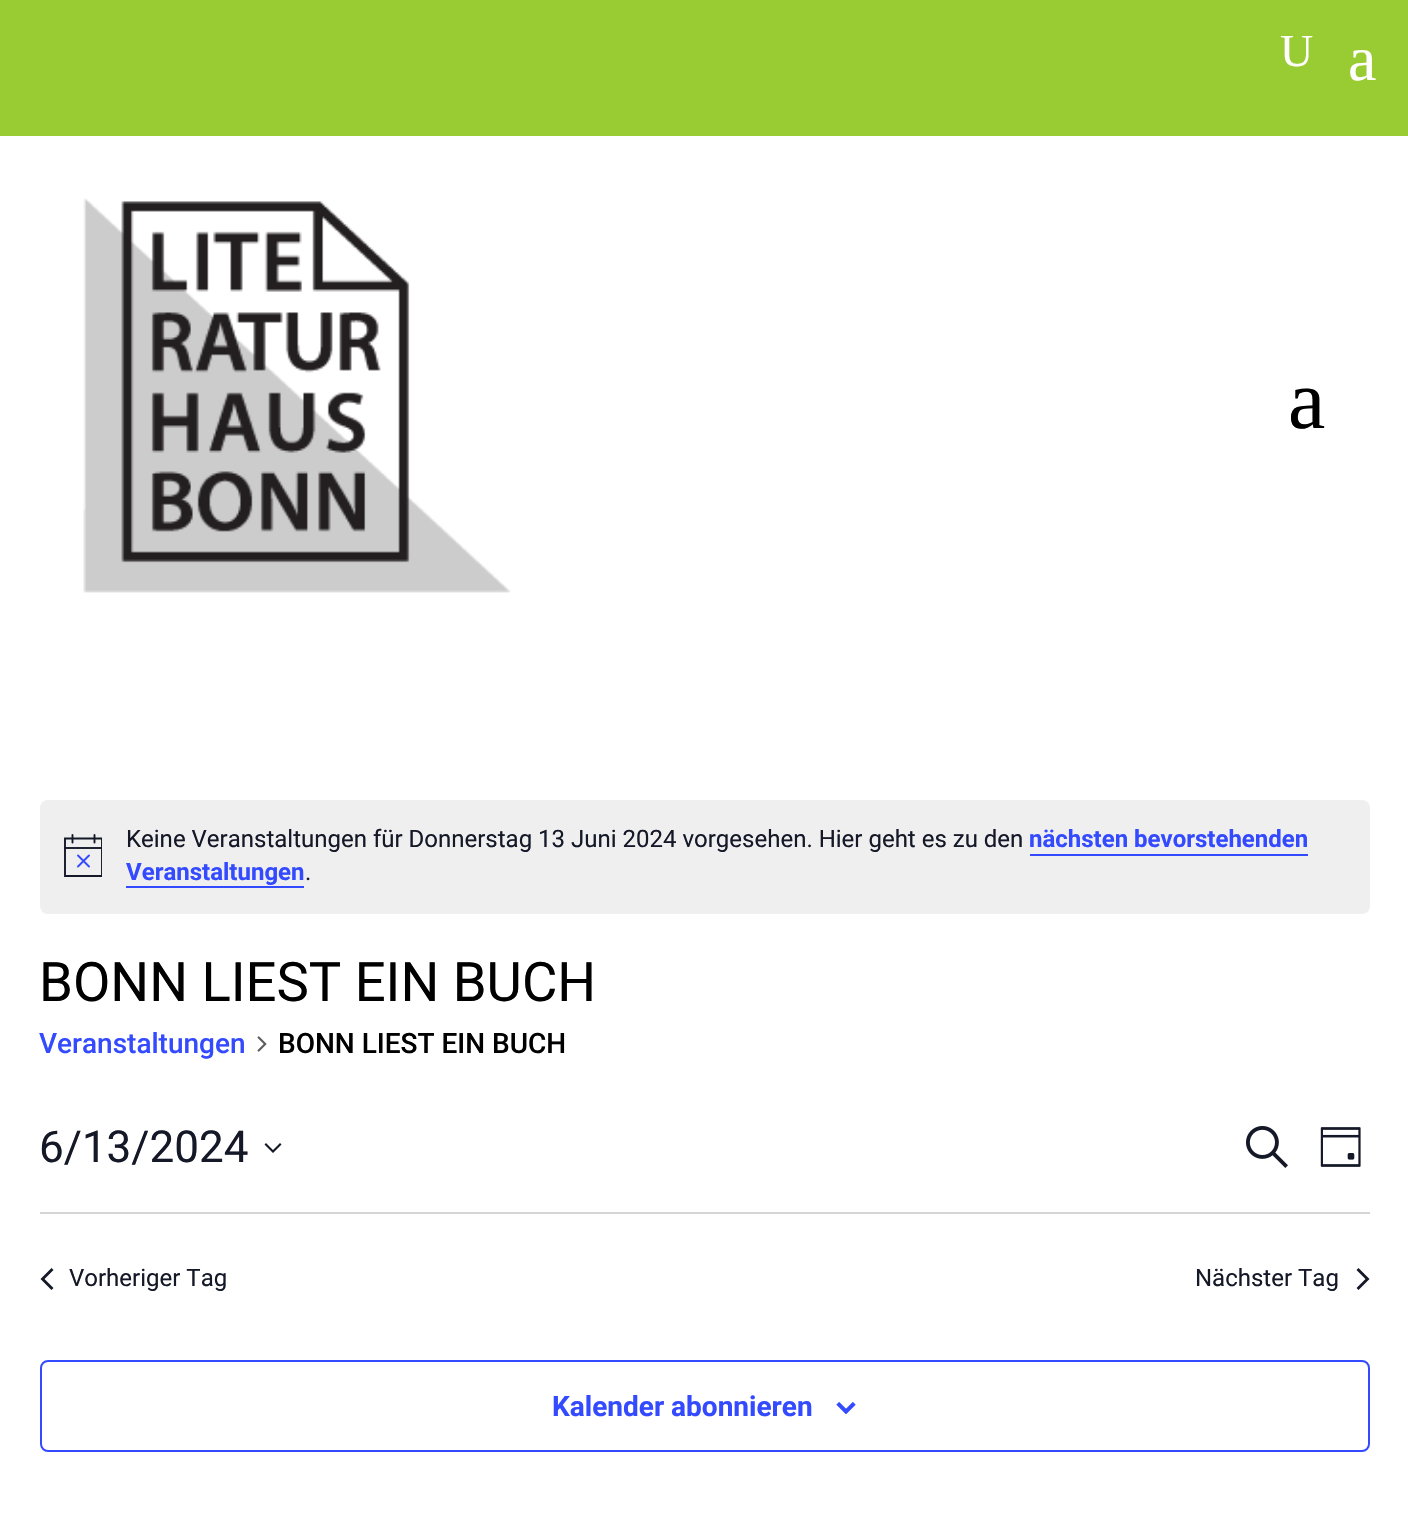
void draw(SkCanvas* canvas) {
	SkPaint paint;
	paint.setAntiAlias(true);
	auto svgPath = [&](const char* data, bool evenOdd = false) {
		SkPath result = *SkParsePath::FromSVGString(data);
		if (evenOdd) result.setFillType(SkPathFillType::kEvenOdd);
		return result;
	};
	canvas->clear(0xffffffff);
	paint.setColor(0xff99cc33);
	canvas->drawRect(SkRect::MakeXYWH(0, 0, 1408, 136), paint);
	SkFont f1(fontMgr->matchFamilyStyle("Liberation Serif", SkFontStyle::Normal()), 46);
	f1.setSubpixel(true);
	paint.setColor(0xffffffff);
	canvas->drawString("U", 1280, 66, f1, paint);
	SkFont f2(fontMgr->matchFamilyStyle("Liberation Serif", SkFontStyle::Normal()), 64);
	f2.setSubpixel(true);
	canvas->drawString("a", 1348, 80, f2, paint);
	canvas->drawImageRect(SkImages::DeferredFromEncodedData(SkData::MakeFromFileName("img1.png")), SkRect::MakeXYWH(83, 198, 428, 395), SkSamplingOptions());
	SkFont f3(fontMgr->matchFamilyStyle("Liberation Serif", SkFontStyle::Normal()), 84);
	f3.setSubpixel(true);
	paint.setColor(0xff000000);
	canvas->drawString("a", 1288, 428, f3, paint);
	paint.setColor(0xffefeff0);
	canvas->drawRoundRect(SkRect::MakeXYWH(40, 800, 1330, 114), 8, 8, paint);
	canvas->save();
	canvas->clipRect(SkRect::MakeXYWH(64, 834, 38, 44));
	paint.setStroke(true);
	paint.setStrokeWidth(1.9);
	paint.setColor(0xff141827);
	canvas->drawPath(svgPath("M65 838.5H102V876H65Z"), paint);
	canvas->restore();
	paint.setStrokeCap(SkPaint::kRound_Cap);
	paint.setColor(0xff334aff);
	canvas->drawPath(svgPath("M78 855.5L89 866.5M89 855.5L78 866.5"), paint);
	paint.setColor(0xff141827);
	canvas->drawPath(svgPath("M72.5 835V842.5M94.5 835V842.5"), paint);
	paint.setStroke(false);
	paint.setColor(0xf2141827);
	canvas->drawRect(SkRect::MakeXYWH(64, 847, 38, 2), paint);
	SkFont f4(fontMgr->matchFamilyStyle("Roboto", SkFontStyle::Normal()), 24);
	f4.setSubpixel(true);
	paint.setColor(0xff141827);
	canvas->drawString("Keine Veranstaltungen für Donnerstag 13 Juni 2024 vorgesehen. Hier geht es zu den", 126, 847, f4, paint);
	SkFont f5(fontMgr->matchFamilyStyle("Roboto", SkFontStyle::Bold()), 24);
	f5.setSubpixel(true);
	paint.setColor(0xff334aff);
	canvas->drawString("nächsten bevorstehenden", 1029, 847, f5, paint);
	canvas->drawRect(SkRect::MakeXYWH(1030, 854, 278, 2), paint);
	canvas->drawString("Veranstaltungen", 126, 880, f5, paint);
	canvas->drawRect(SkRect::MakeXYWH(126, 886, 178, 2), paint);
	paint.setColor(0xff141827);
	canvas->drawString(".", 305, 880, f4, paint);
	SkFont f6(fontMgr->matchFamilyStyle("Roboto", SkFontStyle::Normal()), 54.4);
	f6.setSubpixel(true);
	paint.setColor(0xff000000);
	canvas->drawString("BONN LIEST EIN BUCH", 39, 1001, f6, paint);
	SkFont f7(fontMgr->matchFamilyStyle("Roboto", SkFontStyle(500, SkFontStyle::kNormal_Width, SkFontStyle::kUpright_Slant)), 28);
	f7.setSubpixel(true);
	paint.setColor(0xff334aff);
	canvas->drawString("Veranstaltungen", 39, 1053, f7, paint);
	canvas->drawImageRect(SkImages::DeferredFromEncodedData(SkData::MakeFromFileName("img2.png")), SkRect::MakeXYWH(257, 1036, 10, 16), SkSamplingOptions());
	paint.setColor(0xff000000);
	canvas->drawString("BONN LIEST EIN BUCH", 278, 1053, f7, paint);
	SkFont f8(fontMgr->matchFamilyStyle("Roboto", SkFontStyle::Normal()), 44);
	f8.setSubpixel(true);
	paint.setColor(0xff141827);
	canvas->drawString("6/13/2024", 39, 1162, f8, paint);
	canvas->drawPath(svgPath("M266 1143L273 1150L280 1143L281.5 1144.5L273 1153L264.5 1144.5Z", true), paint);
	canvas->drawImageRect(SkImages::DeferredFromEncodedData(SkData::MakeFromFileName("img3.png")), SkRect::MakeXYWH(1246, 1126, 42, 42), SkSamplingOptions());
	canvas->drawImageRect(SkImages::DeferredFromEncodedData(SkData::MakeFromFileName("img4.png")), SkRect::MakeXYWH(1320, 1127, 41, 40), SkSamplingOptions());
	paint.setColor(0xffd5d5d5);
	canvas->drawRect(SkRect::MakeXYWH(40, 1212, 1330, 2), paint);
	paint.setColor(0xff141827);
	canvas->drawPath(svgPath("M53.5 1288L51.5 1290L40.5 1279L51.5 1268L53.5 1270L44.5 1279Z"), paint);
	canvas->drawString("Vorheriger Tag", 69, 1286, f4, paint);
	canvas->drawString("Nächster Tag", 1195, 1286, f4, paint);
	canvas->drawPath(svgPath("M1356.5 1270L1358.5 1268L1369.5 1279L1358.5 1290L1356.5 1288L1365.5 1279Z"), paint);
	paint.setStroke(true);
	paint.setStrokeWidth(2);
	paint.setStrokeCap(SkPaint::kButt_Cap);
	paint.setColor(0xff334aff);
	canvas->drawRoundRect(SkRect::MakeXYWH(41, 1361, 1328, 90), 7, 7, paint);
	SkFont f9(fontMgr->matchFamilyStyle("Roboto", SkFontStyle::Bold()), 28);
	f9.setSubpixel(true);
	paint.setStroke(false);
	canvas->drawString("Kalender abonnieren", 552, 1416, f9, paint);
	canvas->drawImageRect(SkImages::DeferredFromEncodedData(SkData::MakeFromFileName("img5.png")), SkRect::MakeXYWH(836, 1402, 20, 12), SkSamplingOptions());
}
